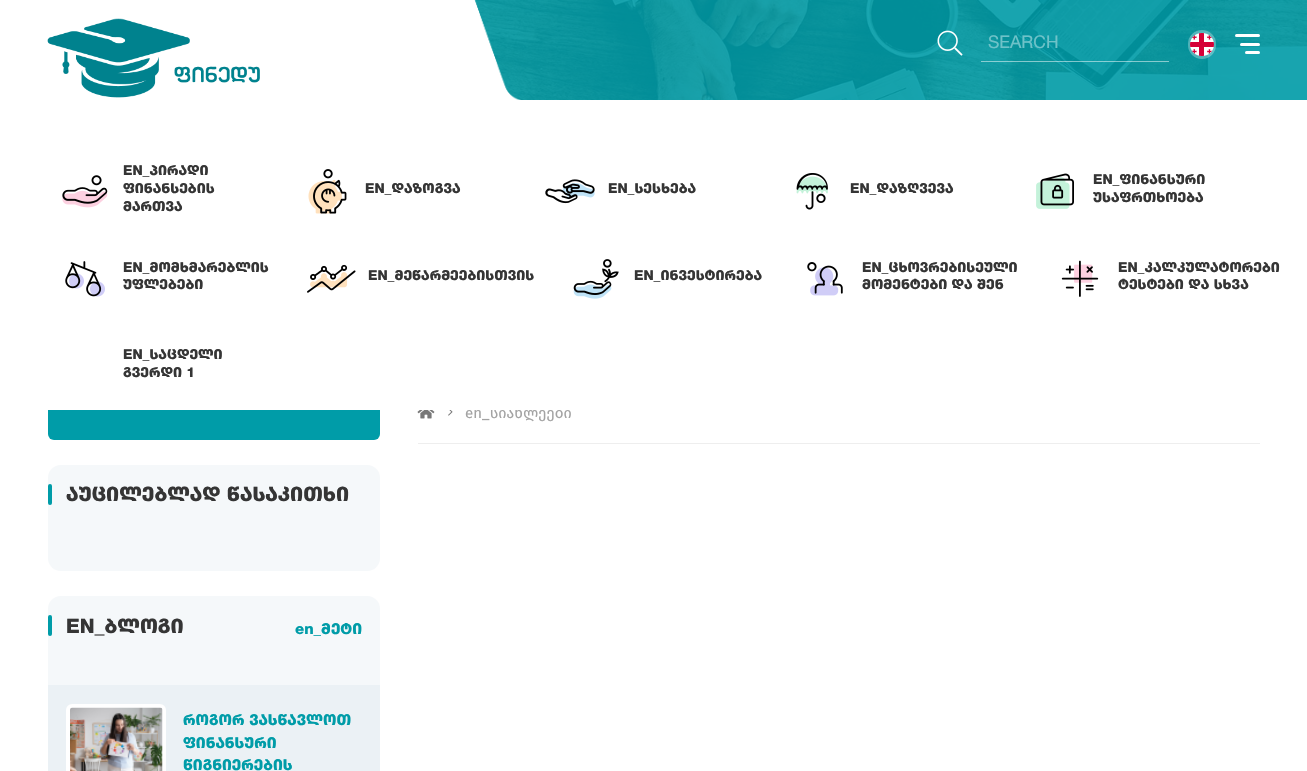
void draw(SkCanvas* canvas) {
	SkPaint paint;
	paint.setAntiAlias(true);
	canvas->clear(0xffffffff);
	canvas->drawImageRect(SkImages::DeferredFromEncodedData(SkData::MakeFromFileName("img2.png")), SkRect::MakeXYWH(474, 0, 833, 100), SkSamplingOptions());
	canvas->drawImageRect(SkImages::DeferredFromEncodedData(SkData::MakeFromFileName("img1.png")), SkRect::MakeXYWH(405, 0, 116, 100), SkSamplingOptions());
	canvas->drawImageRect(SkImages::DeferredFromEncodedData(SkData::MakeFromFileName("img3.png")), SkRect::MakeXYWH(47, 18, 213, 80), SkSamplingOptions());
	canvas->drawImageRect(SkImages::DeferredFromEncodedData(SkData::MakeFromFileName("img4.png")), SkRect::MakeXYWH(937, 30, 26, 26), SkSamplingOptions());
	paint.setColor(0x80ffffff);
	canvas->drawRect(SkRect::MakeXYWH(981, 61, 188, 1), paint);
	SkFont f1(fontMgr->matchFamilyStyle("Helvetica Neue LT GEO", SkFontStyle::Normal()), 17.5);
	f1.setSubpixel(true);
	paint.setColor(0xff6fc2c8);
	canvas->drawString("SEARCH", 988, 48, f1, paint);
	paint.setStroke(true);
	paint.setStrokeWidth(3);
	paint.setColor(0x4dffffff);
	canvas->drawRoundRect(SkRect::MakeXYWH(1189.5, 31.5, 25, 26), 12.5, 12.5, paint);
	canvas->drawImageRect(SkImages::DeferredFromEncodedData(SkData::MakeFromFileName("img5.png")), SkRect::MakeXYWH(1190, 33, 24, 23), SkSamplingOptions());
	paint.setStroke(false);
	paint.setColor(0xffffffff);
	canvas->drawRoundRect(SkRect::MakeXYWH(1235, 34, 25, 3), 1.5, 1.5, paint);
	canvas->drawRoundRect(SkRect::MakeXYWH(1240, 43, 20, 3), 1.5, 1.5, paint);
	canvas->drawRoundRect(SkRect::MakeXYWH(1245, 51, 15, 3), 1.5, 1.5, paint);
	SkFont f2(fontMgr->matchFamilyStyle("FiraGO", SkFontStyle::Normal()), 15);
	f2.setSubpixel(true);
	paint.setColor(0xffa3a3a3);
	canvas->drawString("en_სიახლეები", 465, 418, f2, paint);
	paint.setColor(0xff009ca8);
	canvas->drawRoundRect(SkRect::MakeXYWH(48, 360, 332, 80), 6, 6, paint);
	paint.setColor(0xffffffff);
	canvas->drawRect(SkRect::MakeXYWH(48, 360, 513, 50), paint);
	canvas->drawImageRect(SkImages::DeferredFromEncodedData(SkData::MakeFromFileName("img6.png")), SkRect::MakeXYWH(62, 175, 46, 33), SkSamplingOptions());
	SkFont f3(fontMgr->matchFamilyStyle("Helvetica Neue LT GEO", SkFontStyle(900, SkFontStyle::kNormal_Width, SkFontStyle::kUpright_Slant)), 13.75);
	f3.setSubpixel(true);
	paint.setColor(0xff353535);
	canvas->drawString("EN_პირადი", 123, 175, f3, paint);
	canvas->drawString("ფინანსების", 123, 193, f3, paint);
	canvas->drawString("მართვა", 123, 211, f3, paint);
	canvas->drawImageRect(SkImages::DeferredFromEncodedData(SkData::MakeFromFileName("img7.png")), SkRect::MakeXYWH(308, 169, 39, 45), SkSamplingOptions());
	canvas->drawString("EN_დაზოგვა", 365, 193, f3, paint);
	canvas->drawImageRect(SkImages::DeferredFromEncodedData(SkData::MakeFromFileName("img8.png")), SkRect::MakeXYWH(545, 179, 50, 25), SkSamplingOptions());
	canvas->drawString("EN_სესხება", 608, 193, f3, paint);
	canvas->drawImageRect(SkImages::DeferredFromEncodedData(SkData::MakeFromFileName("img9.png")), SkRect::MakeXYWH(796, 173, 32, 37), SkSamplingOptions());
	canvas->drawString("EN_დაზღვევა", 850, 193, f3, paint);
	canvas->drawImageRect(SkImages::DeferredFromEncodedData(SkData::MakeFromFileName("img10.png")), SkRect::MakeXYWH(1036, 173, 38, 36), SkSamplingOptions());
	canvas->drawString("EN_ფინანსური", 1093, 184, f3, paint);
	canvas->drawString("უსაფრთხოება", 1093, 202, f3, paint);
	canvas->drawImageRect(SkImages::DeferredFromEncodedData(SkData::MakeFromFileName("img11.png")), SkRect::MakeXYWH(65, 261, 40, 36), SkSamplingOptions());
	canvas->drawString("EN_მომხმარებლის", 123, 272, f3, paint);
	canvas->drawString("უფლებები", 123, 289, f3, paint);
	canvas->drawImageRect(SkImages::DeferredFromEncodedData(SkData::MakeFromFileName("img12.png")), SkRect::MakeXYWH(307, 264, 49, 29), SkSamplingOptions());
	canvas->drawString("EN_მეწარმეებისთვის", 368, 280, f3, paint);
	canvas->drawImageRect(SkImages::DeferredFromEncodedData(SkData::MakeFromFileName("img13.png")), SkRect::MakeXYWH(573, 259, 46, 40), SkSamplingOptions());
	canvas->drawString("EN_ინვესტირება", 634, 280, f3, paint);
	canvas->drawImageRect(SkImages::DeferredFromEncodedData(SkData::MakeFromFileName("img14.png")), SkRect::MakeXYWH(807, 262, 36, 34), SkSamplingOptions());
	canvas->drawString("EN_ცხოვრებისეული", 862, 272, f3, paint);
	canvas->drawString("მომენტები და შენ", 862, 289, f3, paint);
	canvas->drawImageRect(SkImages::DeferredFromEncodedData(SkData::MakeFromFileName("img15.png")), SkRect::MakeXYWH(1061, 260, 38, 37), SkSamplingOptions());
	canvas->drawString("EN_კალკულატორები", 1118, 272, f3, paint);
	canvas->drawString("ტესტები და სხვა", 1118, 289, f3, paint);
	canvas->drawString("EN_საცდელი", 123, 359, f3, paint);
	canvas->drawString("გვერდი 1", 123, 377, f3, paint);
	paint.setColor(0xffeeeeee);
	canvas->drawRect(SkRect::MakeXYWH(418, 443, 842, 1), paint);
	canvas->drawImageRect(SkImages::DeferredFromEncodedData(SkData::MakeFromFileName("img16.png")), SkRect::MakeXYWH(417, 410, 18, 9), SkSamplingOptions());
	canvas->drawImageRect(SkImages::DeferredFromEncodedData(SkData::MakeFromFileName("img17.png")), SkRect::MakeXYWH(448, 410, 5, 6), SkSamplingOptions());
	paint.setColor(0xfff5f8fa);
	canvas->drawRoundRect(SkRect::MakeXYWH(48, 465, 332, 106), 13, 13, paint);
	paint.setColor(0xff009ca8);
	canvas->drawRoundRect(SkRect::MakeXYWH(48, 484, 4, 21), 2, 2, paint);
	SkFont f4(fontMgr->matchFamilyStyle("Helvetica Neue LT GEO", SkFontStyle(900, SkFontStyle::kNormal_Width, SkFontStyle::kUpright_Slant)), 20);
	f4.setSubpixel(true);
	paint.setColor(0xff353535);
	canvas->drawString("აუცილებლად წასაკითხი", 66, 501, f4, paint);
	paint.setColor(0xfff5f8fa);
	canvas->drawRoundRect(SkRect::MakeXYWH(48, 596, 332, 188), 13, 13, paint);
	paint.setColor(0xff009ca8);
	canvas->drawRoundRect(SkRect::MakeXYWH(48, 615, 4, 21), 2, 2, paint);
	paint.setColor(0xff353535);
	canvas->drawString("EN_ბლოგი", 66, 633, f4, paint);
	SkFont f5(fontMgr->matchFamilyStyle("Helvetica Neue LT GEO", SkFontStyle(900, SkFontStyle::kNormal_Width, SkFontStyle::kUpright_Slant)), 15);
	f5.setSubpixel(true);
	paint.setColor(0xff009ca8);
	canvas->drawString("en_მეტი", 295, 634, f5, paint);
	paint.setColor(0xffebf1f5);
	canvas->drawRect(SkRect::MakeXYWH(48, 685, 332, 86), paint);
	paint.setColor(0xffffffff);
	canvas->drawRoundRect(SkRect::MakeXYWH(66, 704, 100, 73), 6, 6, paint);
	canvas->drawImageRect(SkImages::DeferredFromEncodedData(SkData::MakeFromFileName("img18.png")), SkRect::MakeXYWH(70, 707, 93, 64), SkSamplingOptions());
	paint.setColor(0xff009ca8);
	canvas->drawString("როგორ ვასწავლოთ", 183, 725, f5, paint);
	canvas->drawString("ფინანსური", 183, 748, f5, paint);
	canvas->drawString("წიგნიერების", 183, 770, f5, paint);
}
